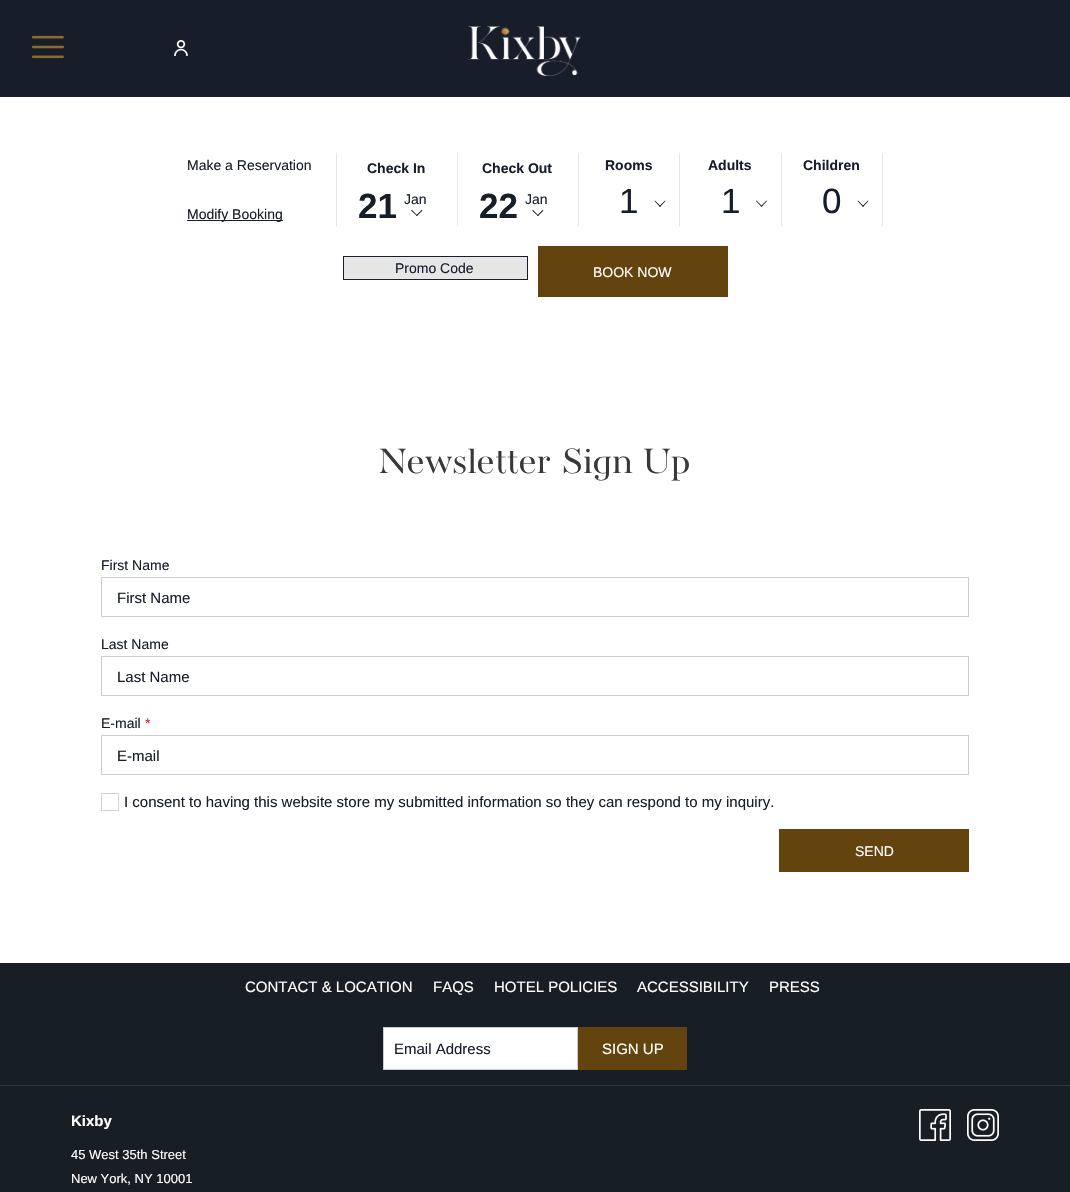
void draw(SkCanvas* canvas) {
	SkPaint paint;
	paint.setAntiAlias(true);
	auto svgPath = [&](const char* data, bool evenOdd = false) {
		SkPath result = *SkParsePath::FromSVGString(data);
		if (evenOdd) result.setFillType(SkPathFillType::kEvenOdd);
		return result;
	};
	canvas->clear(0xffffffff);
	paint.setColor(0xff181e29);
	canvas->drawRect(SkRect::MakeXYWH(0, 0, 1070, 97), paint);
	canvas->drawImageRect(SkImages::DeferredFromEncodedData(SkData::MakeFromFileName("img1.png")), SkRect::MakeXYWH(32, 35, 32, 24), SkSamplingOptions());
	canvas->drawImageRect(SkImages::DeferredFromEncodedData(SkData::MakeFromFileName("img2.png")), SkRect::MakeXYWH(174, 40, 14, 16), SkSamplingOptions());
	canvas->drawImageRect(SkImages::DeferredFromEncodedData(SkData::MakeFromFileName("img3.png")), SkRect::MakeXYWH(468, 26, 113, 50), SkSamplingOptions());
	paint.setColor(0xffe6e6e6);
	canvas->drawRect(SkRect::MakeXYWH(336, 153, 1, 73), paint);
	SkFont f1(fontMgr->matchFamilyStyle("Liberation Sans", SkFontStyle::Normal()), 14);
	f1.setSubpixel(true);
	paint.setColor(0xff181e29);
	canvas->drawString("Make a Reservation", 187, 170, f1, paint);
	canvas->drawRect(SkRect::MakeXYWH(187, 220, 96, 1), paint);
	canvas->drawString("Modify Booking", 187, 219, f1, paint);
	paint.setColor(0xffe6e6e6);
	canvas->drawRect(SkRect::MakeXYWH(457, 153, 1, 73), paint);
	SkFont f2(fontMgr->matchFamilyStyle("Liberation Sans", SkFontStyle::Bold()), 14);
	f2.setSubpixel(true);
	paint.setColor(0xff181e29);
	canvas->drawString("Check In", 367, 173, f2, paint);
	SkFont f3(fontMgr->matchFamilyStyle("Liberation Sans", SkFontStyle::Bold()), 35);
	f3.setSubpixel(true);
	canvas->drawString("21", 358, 218, f3, paint);
	canvas->drawString("Jan", 404, 204, f1, paint);
	canvas->drawPath(svgPath("M421.5 210L422.5 210.5L417 216L416 215.5Z"), paint);
	canvas->drawPath(svgPath("M412 210L417.5 215.5L417 216L411 210.5Z"), paint);
	paint.setColor(0xffe6e6e6);
	canvas->drawRect(SkRect::MakeXYWH(578, 153, 1, 73), paint);
	paint.setColor(0xff181e29);
	canvas->drawString("Check Out", 482, 173, f2, paint);
	canvas->drawString("22", 479, 218, f3, paint);
	canvas->drawString("Jan", 525, 204, f1, paint);
	canvas->drawPath(svgPath("M542.5 210L543.5 210.5L538 216L537 215.5Z"), paint);
	canvas->drawPath(svgPath("M533 210L538.5 215.5L538 216L532 210.5Z"), paint);
	paint.setColor(0xffe6e6e6);
	canvas->drawRect(SkRect::MakeXYWH(679, 153, 1, 73), paint);
	paint.setColor(0xff181e29);
	canvas->drawString("Rooms", 605, 170, f2, paint);
	SkFont f4(fontMgr->matchFamilyStyle("Liberation Sans", SkFontStyle::Normal()), 35);
	f4.setSubpixel(true);
	canvas->drawString("1", 619, 213, f4, paint);
	canvas->drawPath(svgPath("M665 200.5L665.5 201L660 207L659.5 206Z"), paint);
	canvas->drawPath(svgPath("M655 200.5L660.5 206L660 207L654.5 201Z"), paint);
	paint.setColor(0xffe6e6e6);
	canvas->drawRect(SkRect::MakeXYWH(781, 153, 1, 73), paint);
	paint.setColor(0xff181e29);
	canvas->drawString("Adults", 708, 170, f2, paint);
	canvas->drawString("1", 721, 213, f4, paint);
	canvas->drawPath(svgPath("M766.5 200.5L767 201L761.5 207L761 206Z"), paint);
	canvas->drawPath(svgPath("M756.5 200.5L762 206L761.5 207L756 201Z"), paint);
	paint.setColor(0xffe6e6e6);
	canvas->drawRect(SkRect::MakeXYWH(882, 153, 1, 73), paint);
	paint.setColor(0xff181e29);
	canvas->drawString("Children", 803, 170, f2, paint);
	canvas->drawString("0", 822, 213, f4, paint);
	canvas->drawPath(svgPath("M868 200.5L868.5 201L863 207L862.5 206Z"), paint);
	canvas->drawPath(svgPath("M858 200.5L863.5 206L863 207L857.5 201Z"), paint);
	paint.setColor(0xffe6e6e6);
	canvas->drawRect(SkRect::MakeXYWH(343.5, 256.5, 184, 23), paint);
	paint.setStroke(true);
	paint.setStrokeWidth(1);
	paint.setColor(0xff181e29);
	canvas->drawRect(SkRect::MakeXYWH(343.5, 256.5, 184, 23), paint);
	paint.setStroke(false);
	canvas->drawString("Promo Code", 395, 273, f1, paint);
	paint.setColor(0xff64440e);
	canvas->drawRect(SkRect::MakeXYWH(538, 246, 190, 51), paint);
	paint.setColor(0xffffffff);
	canvas->drawString("BOOK NOW", 593, 277, f1, paint);
	SkFont f5(fontMgr->matchFamilyStyle("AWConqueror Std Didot", SkFontStyle::Normal()), 36);
	f5.setSubpixel(true);
	paint.setColor(0xff383838);
	canvas->drawString("Newsletter Sign Up", 379, 473, f5, paint);
	paint.setColor(0xff181e29);
	canvas->drawString("First Name", 101, 570, f1, paint);
	paint.setStroke(true);
	paint.setColor(0xffcccccc);
	canvas->drawRect(SkRect::MakeXYWH(101.5, 577.5, 867, 39), paint);
	SkFont f6(fontMgr->matchFamilyStyle("Liberation Sans", SkFontStyle::Normal()), 15);
	f6.setSubpixel(true);
	paint.setStroke(false);
	paint.setColor(0xff181e29);
	canvas->drawString("First Name", 117, 603, f6, paint);
	canvas->drawString("Last Name", 101, 649, f1, paint);
	paint.setStroke(true);
	paint.setColor(0xffcccccc);
	canvas->drawRect(SkRect::MakeXYWH(101.5, 656.5, 867, 39), paint);
	paint.setStroke(false);
	paint.setColor(0xff181e29);
	canvas->drawString("Last Name", 117, 682, f6, paint);
	canvas->drawString("E-mail", 101, 728, f1, paint);
	paint.setColor(0xffeb1120);
	canvas->drawString("*", 145, 728, f1, paint);
	paint.setStroke(true);
	paint.setColor(0xffcccccc);
	canvas->drawRect(SkRect::MakeXYWH(101.5, 735.5, 867, 39), paint);
	paint.setStroke(false);
	paint.setColor(0xff181e29);
	canvas->drawString("E-mail", 117, 761, f6, paint);
	paint.setStroke(true);
	paint.setColor(0xffd3d3d3);
	canvas->drawRect(SkRect::MakeXYWH(101.5, 793.5, 17, 17), paint);
	paint.setStroke(false);
	paint.setColor(0xff181e29);
	canvas->drawString("I consent to having this website store my submitted information so they can respond to my inquiry.", 124, 807, f6, paint);
	paint.setColor(0xff64440e);
	canvas->drawRect(SkRect::MakeXYWH(779, 829, 190, 43), paint);
	paint.setColor(0xffffffff);
	canvas->drawString("SEND", 855, 856, f1, paint);
	paint.setColor(0xff181e26);
	canvas->drawRect(SkRect::MakeXYWH(0, 963, 1070, 229), paint);
	paint.setColor(0xffffffff);
	canvas->drawString("CONTACT & LOCATION", 245, 992, f6, paint);
	canvas->drawString("FAQS", 433, 992, f6, paint);
	canvas->drawString("HOTEL POLICIES", 494, 992, f6, paint);
	canvas->drawString("ACCESSIBILITY", 637, 992, f6, paint);
	canvas->drawString("PRESS", 769, 992, f6, paint);
	canvas->drawRect(SkRect::MakeXYWH(383.5, 1027.5, 194, 42), paint);
	paint.setStroke(true);
	paint.setColor(0xffcccccc);
	canvas->drawRect(SkRect::MakeXYWH(383.5, 1027.5, 194, 42), paint);
	paint.setStroke(false);
	paint.setColor(0xff181e29);
	canvas->drawString("Email Address", 394, 1054, f6, paint);
	paint.setColor(0xff64440e);
	canvas->drawRect(SkRect::MakeXYWH(578, 1027, 109, 43), paint);
	paint.setColor(0xffffffff);
	canvas->drawString("SIGN UP", 602, 1054, f6, paint);
	paint.setColor(0xff2f353c);
	canvas->drawRect(SkRect::MakeXYWH(0, 1085, 1070, 1), paint);
	SkFont f7(fontMgr->matchFamilyStyle("Liberation Sans", SkFontStyle::Bold()), 15);
	f7.setSubpixel(true);
	paint.setColor(0xffffffff);
	canvas->drawString("Kixby", 71, 1126, f7, paint);
	SkFont f8(fontMgr->matchFamilyStyle("Liberation Sans", SkFontStyle::Normal()), 13);
	f8.setSubpixel(true);
	canvas->drawString("45 West 35th Street", 71, 1159, f8, paint);
	canvas->drawString("New York, NY 10001", 71, 1183, f8, paint);
	canvas->drawImageRect(SkImages::DeferredFromEncodedData(SkData::MakeFromFileName("img4.png")), SkRect::MakeXYWH(919, 1109, 32, 32), SkSamplingOptions());
	canvas->drawImageRect(SkImages::DeferredFromEncodedData(SkData::MakeFromFileName("img5.png")), SkRect::MakeXYWH(967, 1109, 32, 32), SkSamplingOptions());
}
